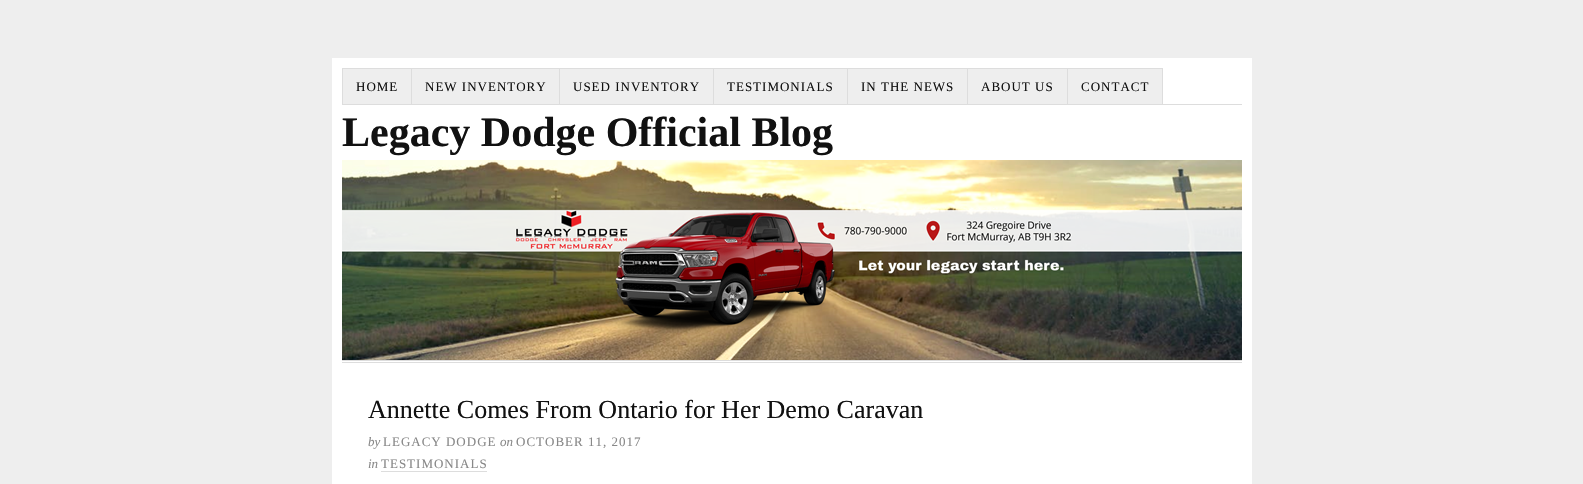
void draw(SkCanvas* canvas) {
	SkPaint paint;
	paint.setAntiAlias(true);
	auto spacedText = [&](const char* s, float x, float y, const SkFont& font, const SkPaint& ink, float letter, float word) {
		std::vector<SkGlyphID> glyphs(font.countText(s, strlen(s), SkTextEncoding::kUTF8));
		std::vector<float> xs(glyphs.size());
		font.textToGlyphs(s, strlen(s), SkTextEncoding::kUTF8, glyphs);
		font.getXPos(glyphs, xs, x);
		float extra = 0;
		for (size_t i = 0; i < glyphs.size(); i++) {
			xs[i] += extra;
			extra += letter + word * (glyphs[i] == font.unicharToGlyph(' '));
		}
		canvas->drawTextBlob(SkTextBlob::MakeFromPosHGlyphs(glyphs, xs, y, font), 0, 0, ink);
	};
	canvas->clear(0xffeeeeee);
	paint.setColor(0xffffffff);
	canvas->drawRect(SkRect::MakeXYWH(332, 58, 920, 426), paint);
	paint.setColor(0xffdddddd);
	canvas->drawRect(SkRect::MakeXYWH(342, 104, 900, 1), paint);
	canvas->drawRect(SkRect::MakeXYWH(342, 68, 1, 37), paint);
	paint.setColor(0xffeeeeee);
	canvas->drawRect(SkRect::MakeXYWH(343, 69, 68, 35), paint);
	paint.setColor(0xffdddddd);
	canvas->drawRect(SkRect::MakeXYWH(343, 68, 820, 1), paint);
	canvas->drawRect(SkRect::MakeXYWH(411, 68, 1, 37), paint);
	SkFont f1(fontMgr->matchFamilyStyle("Liberation Serif", SkFontStyle::Normal()), 13);
	f1.setSubpixel(true);
	paint.setColor(0xff111111);
	spacedText("HOME", 356, 91, f1, paint, 1, 0);
	paint.setColor(0xffeeeeee);
	canvas->drawRect(SkRect::MakeXYWH(412, 69, 147, 35), paint);
	paint.setColor(0xffdddddd);
	canvas->drawRect(SkRect::MakeXYWH(559, 68, 1, 37), paint);
	paint.setColor(0xff111111);
	spacedText("NEW INVENTORY", 425, 91, f1, paint, 1, 0);
	paint.setColor(0xffeeeeee);
	canvas->drawRect(SkRect::MakeXYWH(560, 69, 153, 35), paint);
	paint.setColor(0xffdddddd);
	canvas->drawRect(SkRect::MakeXYWH(713, 68, 1, 37), paint);
	paint.setColor(0xff111111);
	spacedText("USED INVENTORY", 573, 91, f1, paint, 1, 0);
	paint.setColor(0xffeeeeee);
	canvas->drawRect(SkRect::MakeXYWH(714, 69, 133, 35), paint);
	paint.setColor(0xffdddddd);
	canvas->drawRect(SkRect::MakeXYWH(847, 68, 1, 37), paint);
	paint.setColor(0xff111111);
	spacedText("TESTIMONIALS", 727, 91, f1, paint, 1, 0);
	paint.setColor(0xffeeeeee);
	canvas->drawRect(SkRect::MakeXYWH(848, 69, 119, 35), paint);
	paint.setColor(0xffdddddd);
	canvas->drawRect(SkRect::MakeXYWH(967, 68, 1, 37), paint);
	paint.setColor(0xff111111);
	spacedText("IN THE NEWS", 861, 91, f1, paint, 1, 0);
	paint.setColor(0xffeeeeee);
	canvas->drawRect(SkRect::MakeXYWH(968, 69, 99, 35), paint);
	paint.setColor(0xffdddddd);
	canvas->drawRect(SkRect::MakeXYWH(1067, 68, 1, 37), paint);
	paint.setColor(0xff111111);
	spacedText("ABOUT US", 981, 91, f1, paint, 1, 0);
	paint.setColor(0xffeeeeee);
	canvas->drawRect(SkRect::MakeXYWH(1068, 69, 94, 35), paint);
	paint.setColor(0xffdddddd);
	canvas->drawRect(SkRect::MakeXYWH(1162, 68, 1, 37), paint);
	paint.setColor(0xff111111);
	spacedText("CONTACT", 1081, 91, f1, paint, 1, 0);
	paint.setColor(0xffdddddd);
	canvas->drawRect(SkRect::MakeXYWH(342, 360, 900, 1), paint);
	canvas->drawRect(SkRect::MakeXYWH(342, 362, 900, 1), paint);
	SkFont f2(fontMgr->matchFamilyStyle("Liberation Serif", SkFontStyle::Bold()), 42);
	f2.setSubpixel(true);
	paint.setColor(0xff111111);
	canvas->drawString("Legacy Dodge Official Blog", 342, 146, f2, paint);
	canvas->drawImageRect(SkImages::DeferredFromEncodedData(SkData::MakeFromFileName("img1.png")), SkRect::MakeXYWH(342, 160, 900, 200), SkSamplingOptions());
	SkFont f3(fontMgr->matchFamilyStyle("Liberation Serif", SkFontStyle::Normal()), 26);
	f3.setSubpixel(true);
	canvas->drawString("Annette Comes From Ontario for Her Demo Caravan", 368, 418, f3, paint);
	SkFont f4(fontMgr->matchFamilyStyle("Liberation Serif", SkFontStyle::Italic()), 13);
	f4.setSubpixel(true);
	paint.setColor(0xff888888);
	canvas->drawString("by", 368, 446, f4, paint);
	spacedText("LEGACY DODGE", 383, 446, f1, paint, 1, 0);
	canvas->drawString("on", 500, 446, f4, paint);
	spacedText("OCTOBER 11, 2017", 516, 446, f1, paint, 1, 0);
	canvas->drawString("in", 368, 468, f4, paint);
	spacedText("TESTIMONIALS", 381, 468, f1, paint, 1, 0);
	paint.setColor(0xffdddddd);
	canvas->drawRect(SkRect::MakeXYWH(381, 471, 106, 1), paint);
}
